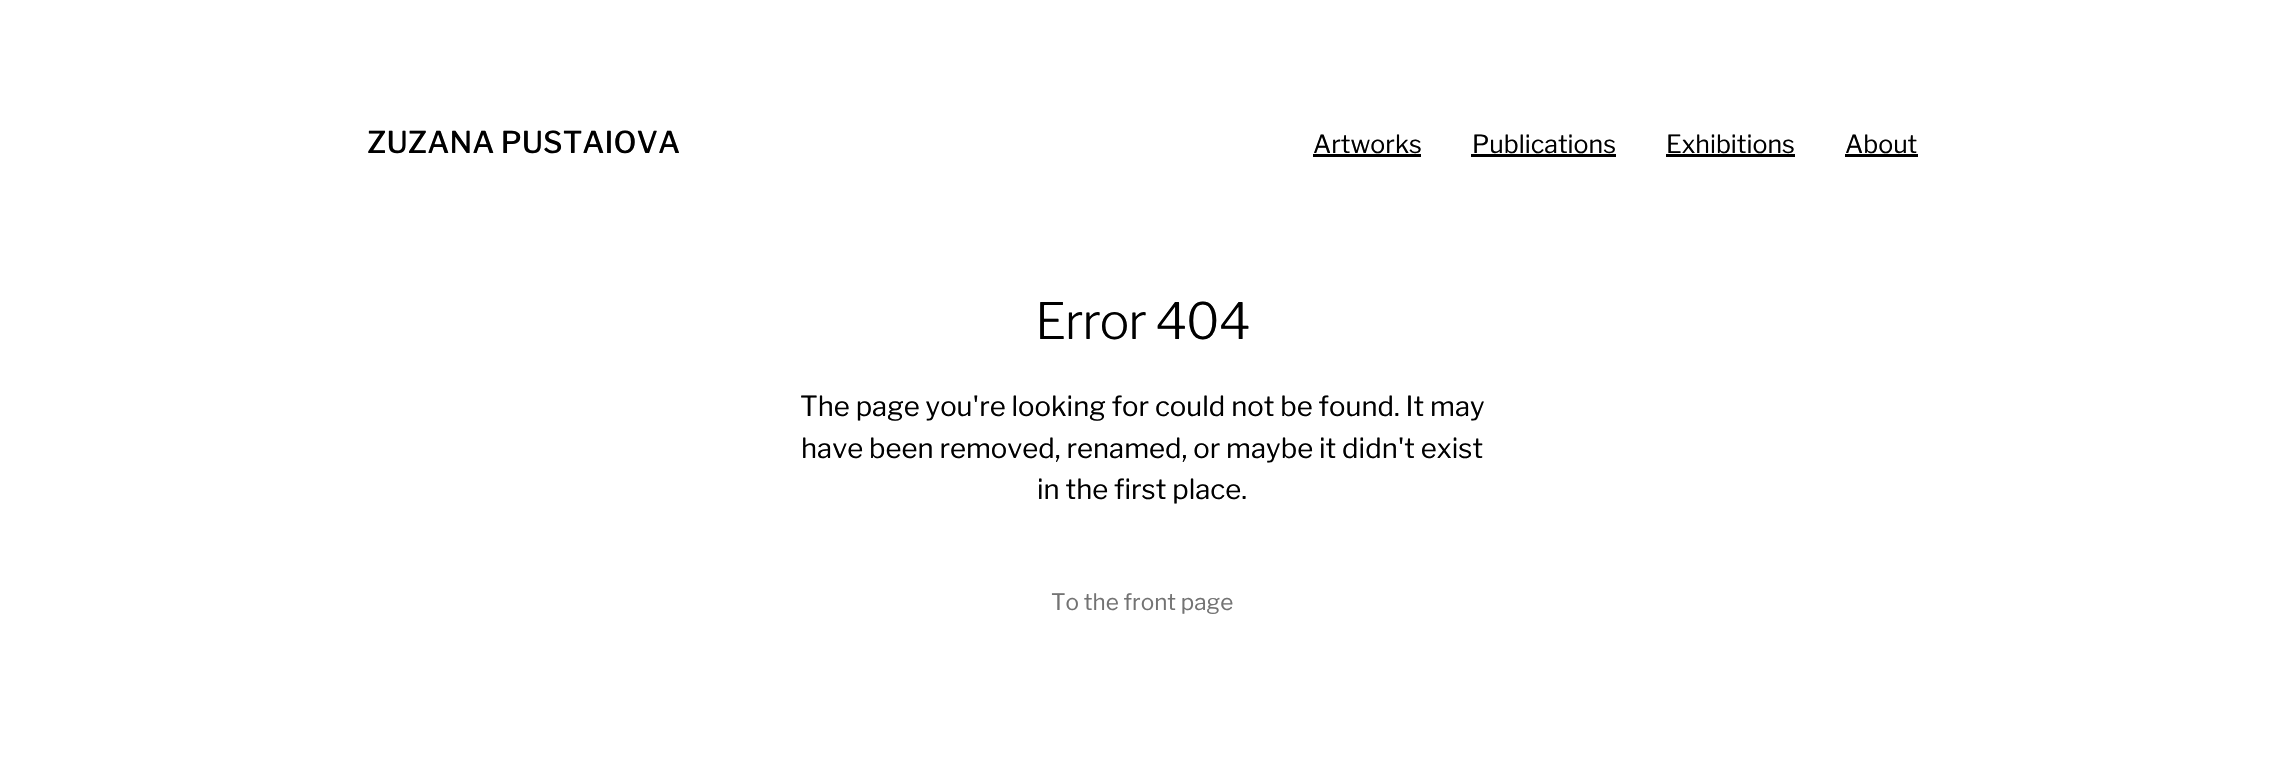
void draw(SkCanvas* canvas) {
	SkPaint paint;
	paint.setAntiAlias(true);
	auto spacedText = [&](const char* s, float x, float y, const SkFont& font, const SkPaint& ink, float letter, float word) {
		std::vector<SkGlyphID> glyphs(font.countText(s, strlen(s), SkTextEncoding::kUTF8));
		std::vector<float> xs(glyphs.size());
		font.textToGlyphs(s, strlen(s), SkTextEncoding::kUTF8, glyphs);
		font.getXPos(glyphs, xs, x);
		float extra = 0;
		for (size_t i = 0; i < glyphs.size(); i++) {
			xs[i] += extra;
			extra += letter + word * (glyphs[i] == font.unicharToGlyph(' '));
		}
		canvas->drawTextBlob(SkTextBlob::MakeFromPosHGlyphs(glyphs, xs, y, font), 0, 0, ink);
	};
	canvas->clear(0xffffffff);
	SkFont f1(fontMgr->matchFamilyStyle("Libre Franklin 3", SkFontStyle(100, SkFontStyle::kNormal_Width, SkFontStyle::kUpright_Slant)), 30);
	f1.setSubpixel(true);
	paint.setColor(0xff000000);
	canvas->drawString("ZUZANA PUSTAIOVA", 367, 153, f1, paint);
	SkFont f2(fontMgr->matchFamilyStyle("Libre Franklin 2", SkFontStyle(100, SkFontStyle::kNormal_Width, SkFontStyle::kUpright_Slant)), 25);
	f2.setSubpixel(true);
	canvas->drawString("Artworks", 1313, 153, f2, paint);
	canvas->drawRect(SkRect::MakeXYWH(1313, 154, 108, 3), paint);
	canvas->drawString("Publications", 1472, 153, f2, paint);
	canvas->drawRect(SkRect::MakeXYWH(1471, 154, 145, 3), paint);
	canvas->drawString("Exhibitions", 1666, 153, f2, paint);
	canvas->drawRect(SkRect::MakeXYWH(1666, 154, 129, 3), paint);
	canvas->drawString("About", 1845, 153, f2, paint);
	canvas->drawRect(SkRect::MakeXYWH(1845, 154, 73, 3), paint);
	SkFont f3(fontMgr->matchFamilyStyle("Libre Franklin", SkFontStyle(100, SkFontStyle::kNormal_Width, SkFontStyle::kUpright_Slant)), 50);
	f3.setSubpixel(true);
	spacedText("Error 404", 1035, 339, f3, paint, -1.25, 0);
	SkFont f4(fontMgr->matchFamilyStyle("Libre Franklin 2", SkFontStyle(100, SkFontStyle::kNormal_Width, SkFontStyle::kUpright_Slant)), 27.5);
	f4.setSubpixel(true);
	canvas->drawString("The page you're looking for could not be found. It may", 800, 416, f4, paint);
	canvas->drawString("have been removed, renamed, or maybe it didn't exist", 801, 458, f4, paint);
	canvas->drawString("in the first place.", 1037, 499, f4, paint);
	SkFont f5(fontMgr->matchFamilyStyle("Libre Franklin 2", SkFontStyle(100, SkFontStyle::kNormal_Width, SkFontStyle::kUpright_Slant)), 22.5);
	f5.setSubpixel(true);
	paint.setColor(0xff737373);
	canvas->drawString("To the front page", 1051, 610, f5, paint);
}
